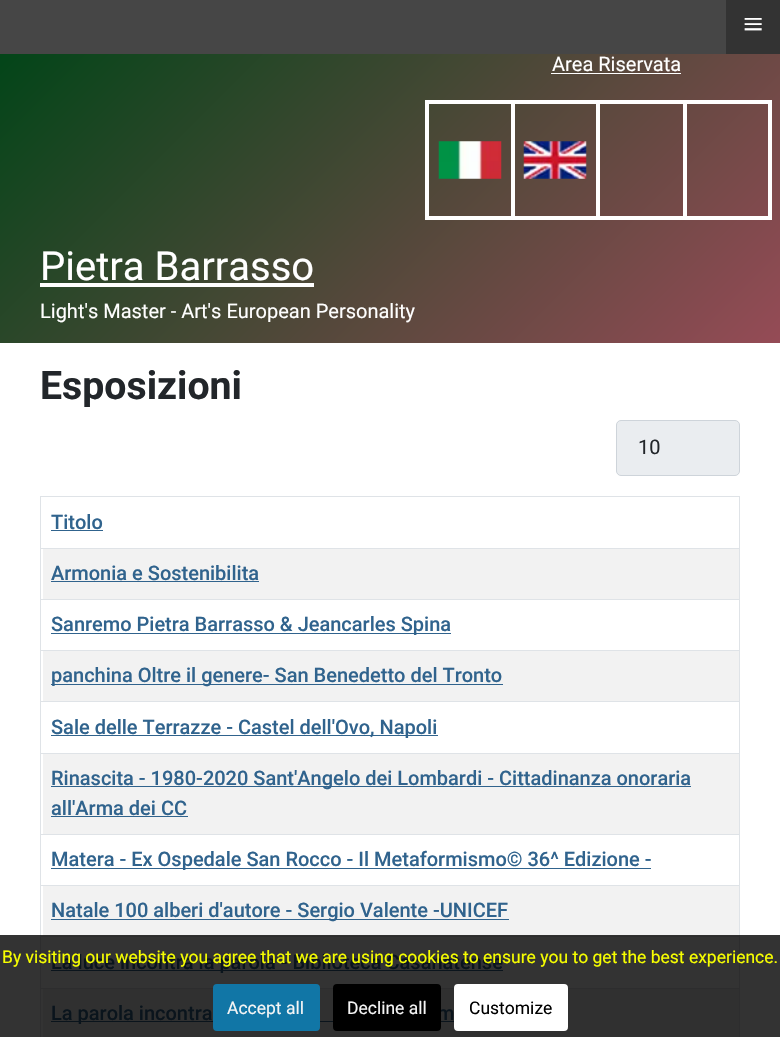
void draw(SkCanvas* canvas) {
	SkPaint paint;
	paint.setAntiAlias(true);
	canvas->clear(0xffffffff);
	paint.setColor(0xff333333);
	canvas->drawRect(SkRect::MakeXYWH(0, 935, 780, 102), paint);
	paint.setColor(0xff464646);
	canvas->drawRect(SkRect::MakeXYWH(0, 0, 726, 54), paint);
	paint.setColor(0xff333333);
	canvas->drawRect(SkRect::MakeXYWH(726, 0, 54, 54), paint);
	SkFont f1(fontMgr->matchFamilyStyle("Liberation Serif", SkFontStyle::Normal()), 36);
	f1.setSubpixel(true);
	paint.setColor(0xffffffff);
	canvas->drawString("≡", 743, 36, f1, paint);
	{
		const SkColor colors[] = {0xff024518, 0xff954b56};
		const float stops[] = {0, 1};
		const SkPoint ends[] = {{122, -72}, {658, 464}};
		paint.setShader(SkGradientShader::MakeLinear(ends, colors, stops, 2, SkTileMode::kClamp));
		paint.setAlpha(255);
	}
	canvas->drawRect(SkRect::MakeXYWH(0, 54, 780, 289), paint);
	SkFont f2(fontMgr->matchFamilyStyle("Roboto", SkFontStyle::Normal()), 20);
	f2.setSubpixel(true);
	paint.setShader(nullptr);
	paint.setColor(0xffffffff);
	canvas->drawString("Area Riservata", 552, 71, f2, paint);
	canvas->drawRect(SkRect::MakeXYWH(551, 73, 130, 1), paint);
	canvas->drawRect(SkRect::MakeXYWH(683, 100, 88, 4), paint);
	canvas->drawRect(SkRect::MakeXYWH(768, 100, 4, 120), paint);
	canvas->drawRect(SkRect::MakeXYWH(683, 216, 88, 4), paint);
	canvas->drawRect(SkRect::MakeXYWH(683, 100, 4, 120), paint);
	canvas->drawRect(SkRect::MakeXYWH(596, 100, 90, 4), paint);
	canvas->drawRect(SkRect::MakeXYWH(596, 216, 90, 4), paint);
	canvas->drawRect(SkRect::MakeXYWH(596, 100, 4, 120), paint);
	canvas->drawRect(SkRect::MakeXYWH(511, 100, 89, 4), paint);
	canvas->drawRect(SkRect::MakeXYWH(511, 216, 89, 4), paint);
	canvas->drawRect(SkRect::MakeXYWH(511, 100, 4, 120), paint);
	canvas->drawRect(SkRect::MakeXYWH(425, 100, 90, 4), paint);
	canvas->drawRect(SkRect::MakeXYWH(425, 216, 90, 4), paint);
	canvas->drawRect(SkRect::MakeXYWH(425, 100, 4, 120), paint);
	canvas->drawImageRect(SkImages::DeferredFromEncodedData(SkData::MakeFromFileName("img1.png")), SkRect::MakeXYWH(438, 141, 64, 38), SkSamplingOptions());
	canvas->drawImageRect(SkImages::DeferredFromEncodedData(SkData::MakeFromFileName("img2.png")), SkRect::MakeXYWH(523, 141, 64, 38), SkSamplingOptions());
	SkFont f3(fontMgr->matchFamilyStyle("Roboto", SkFontStyle::Normal()), 40);
	f3.setSubpixel(true);
	canvas->drawString("Pietra Barrasso", 40, 280, f3, paint);
	canvas->drawRect(SkRect::MakeXYWH(40, 283, 274, 4), paint);
	canvas->drawString("Light's Master - Art's European Personality", 40, 318, f2, paint);
	SkFont f4(fontMgr->matchFamilyStyle("Roboto", SkFontStyle::Bold()), 39.25);
	f4.setSubpixel(true);
	paint.setColor(0xff22262a);
	canvas->drawString("Esposizioni", 40, 399, f4, paint);
	paint.setColor(0xffeaedf0);
	canvas->drawRoundRect(SkRect::MakeXYWH(616.5, 420.5, 123, 55), 4.5, 4.5, paint);
	paint.setStroke(true);
	paint.setStrokeWidth(1);
	paint.setColor(0xffced4da);
	canvas->drawRoundRect(SkRect::MakeXYWH(616.5, 420.5, 123, 55), 4.5, 4.5, paint);
	paint.setStroke(false);
	paint.setColor(0xff22262a);
	canvas->drawString("10", 638, 454, f2, paint);
	paint.setColor(0xffdfe3e7);
	canvas->drawRect(SkRect::MakeXYWH(40, 496, 700, 1), paint);
	SkFont f5(fontMgr->matchFamilyStyle("Roboto", SkFontStyle(500, SkFontStyle::kNormal_Width, SkFontStyle::kUpright_Slant)), 20);
	f5.setSubpixel(true);
	paint.setColor(0xff30638d);
	canvas->drawString("Titolo", 51, 529, f5, paint);
	canvas->drawRect(SkRect::MakeXYWH(51, 530, 52, 1), paint);
	paint.setColor(0xffdfe3e7);
	canvas->drawRect(SkRect::MakeXYWH(40, 548, 700, 1), paint);
	paint.setColor(0xfff2f2f2);
	canvas->drawRect(SkRect::MakeXYWH(43, 549, 696, 50), paint);
	paint.setColor(0xff30638d);
	canvas->drawString("Armonia e Sostenibilita", 51, 580, f5, paint);
	canvas->drawRect(SkRect::MakeXYWH(51, 581, 208, 1), paint);
	paint.setColor(0xffdfe3e7);
	canvas->drawRect(SkRect::MakeXYWH(40, 599, 700, 1), paint);
	paint.setColor(0xff30638d);
	canvas->drawRect(SkRect::MakeXYWH(51, 633, 400, 1), paint);
	canvas->drawString("Sanremo Pietra Barrasso & Jeancarles Spina", 51, 631, f5, paint);
	paint.setColor(0xffdfe3e7);
	canvas->drawRect(SkRect::MakeXYWH(40, 650, 700, 1), paint);
	paint.setColor(0xfff2f2f2);
	canvas->drawRect(SkRect::MakeXYWH(43, 651, 696, 50), paint);
	paint.setColor(0xff30638d);
	canvas->drawRect(SkRect::MakeXYWH(51, 684, 452, 1), paint);
	canvas->drawString("panchina Oltre il genere- San Benedetto del Tronto", 51, 682, f5, paint);
	paint.setColor(0xffdfe3e7);
	canvas->drawRect(SkRect::MakeXYWH(40, 701, 700, 1), paint);
	paint.setColor(0xff30638d);
	canvas->drawRect(SkRect::MakeXYWH(51, 735, 387, 1), paint);
	canvas->drawString("Sale delle Terrazze - Castel dell'Ovo, Napoli", 51, 734, f5, paint);
	paint.setColor(0xffdfe3e7);
	canvas->drawRect(SkRect::MakeXYWH(40, 753, 700, 1), paint);
	paint.setColor(0xfff2f2f2);
	canvas->drawRect(SkRect::MakeXYWH(43, 754, 696, 80), paint);
	paint.setColor(0xff30638d);
	canvas->drawRect(SkRect::MakeXYWH(51, 786, 640, 1), paint);
	canvas->drawString("Rinascita - 1980-2020 Sant'Angelo dei Lombardi - Cittadinanza onoraria", 51, 785, f5, paint);
	canvas->drawString("all'Arma dei CC", 51, 815, f5, paint);
	canvas->drawRect(SkRect::MakeXYWH(51, 816, 137, 1), paint);
	paint.setColor(0xffdfe3e7);
	canvas->drawRect(SkRect::MakeXYWH(40, 834, 700, 1), paint);
	paint.setColor(0xff30638d);
	canvas->drawRect(SkRect::MakeXYWH(51, 868, 600, 1), paint);
	canvas->drawString("Matera - Ex Ospedale San Rocco - Il Metaformismo© 36^ Edizione -", 51, 866, f5, paint);
	paint.setColor(0xffdfe3e7);
	canvas->drawRect(SkRect::MakeXYWH(40, 885, 700, 1), paint);
	paint.setColor(0xfff2f2f2);
	canvas->drawRect(SkRect::MakeXYWH(43, 886, 696, 49), paint);
	paint.setColor(0xff303030);
	canvas->drawRect(SkRect::MakeXYWH(43, 935, 696, 1), paint);
	paint.setColor(0xff2d2d2e);
	canvas->drawRect(SkRect::MakeXYWH(40, 936, 700, 1), paint);
	canvas->drawRect(SkRect::MakeXYWH(40, 988, 700, 1), paint);
	canvas->drawRect(SkRect::MakeXYWH(739, 936, 1, 101), paint);
	paint.setColor(0xffdfe3e7);
	canvas->drawRect(SkRect::MakeXYWH(739, 496, 1, 442), paint);
	paint.setColor(0xff2d2d2e);
	canvas->drawRect(SkRect::MakeXYWH(739, 935, 1, 3), paint);
	canvas->drawRect(SkRect::MakeXYWH(40, 936, 1, 101), paint);
	paint.setColor(0xffdfe3e7);
	canvas->drawRect(SkRect::MakeXYWH(40, 496, 1, 442), paint);
	paint.setColor(0xff2d2d2e);
	canvas->drawRect(SkRect::MakeXYWH(40, 935, 1, 3), paint);
	paint.setColor(0xff30638d);
	canvas->drawRect(SkRect::MakeXYWH(51, 919, 458, 1), paint);
	canvas->drawString("Natale 100 alberi d'autore - Sergio Valente -UNICEF", 51, 917, f5, paint);
	paint.setColor(0xff0a141c);
	canvas->drawRect(SkRect::MakeXYWH(51, 970, 452, 1), paint);
	canvas->drawString("La luce incontra la parola - Biblioteca Casanatense", 51, 969, f5, paint);
	paint.setColor(0xff303030);
	canvas->drawRect(SkRect::MakeXYWH(43, 989, 696, 48), paint);
	paint.setColor(0xff0a141c);
	canvas->drawRect(SkRect::MakeXYWH(51, 1021, 403, 1), paint);
	canvas->drawString("La parola incontra", 51, 1020, f5, paint);
	canvas->drawString("m", 437, 1020, f5, paint);
	SkFont f6(fontMgr->matchFamilyStyle("Roboto", SkFontStyle::Normal()), 17.5);
	f6.setSubpixel(true);
	paint.setColor(0xfff7ff00);
	canvas->drawString("By visiting our website you agree that we are using cookies to ensure you to get the best experience.", 2, 963, f6, paint);
	paint.setColor(0xff1176a6);
	canvas->drawRoundRect(SkRect::MakeXYWH(214.5, 985.5, 104, 44), 2.5, 2.5, paint);
	paint.setStroke(true);
	paint.setStrokeWidth(3);
	canvas->drawRoundRect(SkRect::MakeXYWH(214.5, 985.5, 104, 44), 2.5, 2.5, paint);
	paint.setStroke(false);
	paint.setColor(0xfff5f5f5);
	canvas->drawString("Accept all", 227, 1014, f6, paint);
	paint.setColor(0xff000000);
	canvas->drawRoundRect(SkRect::MakeXYWH(334.5, 985.5, 105, 44), 2.5, 2.5, paint);
	paint.setStroke(true);
	canvas->drawRoundRect(SkRect::MakeXYWH(334.5, 985.5, 105, 44), 2.5, 2.5, paint);
	paint.setStroke(false);
	paint.setColor(0xfff5f5f5);
	canvas->drawString("Decline all", 347, 1014, f6, paint);
	paint.setColor(0xffffffff);
	canvas->drawRoundRect(SkRect::MakeXYWH(455.5, 985.5, 111, 44), 2.5, 2.5, paint);
	paint.setStroke(true);
	canvas->drawRoundRect(SkRect::MakeXYWH(455.5, 985.5, 111, 44), 2.5, 2.5, paint);
	paint.setStroke(false);
	paint.setColor(0xff000000);
	canvas->drawString("Customize", 469, 1014, f6, paint);
}
